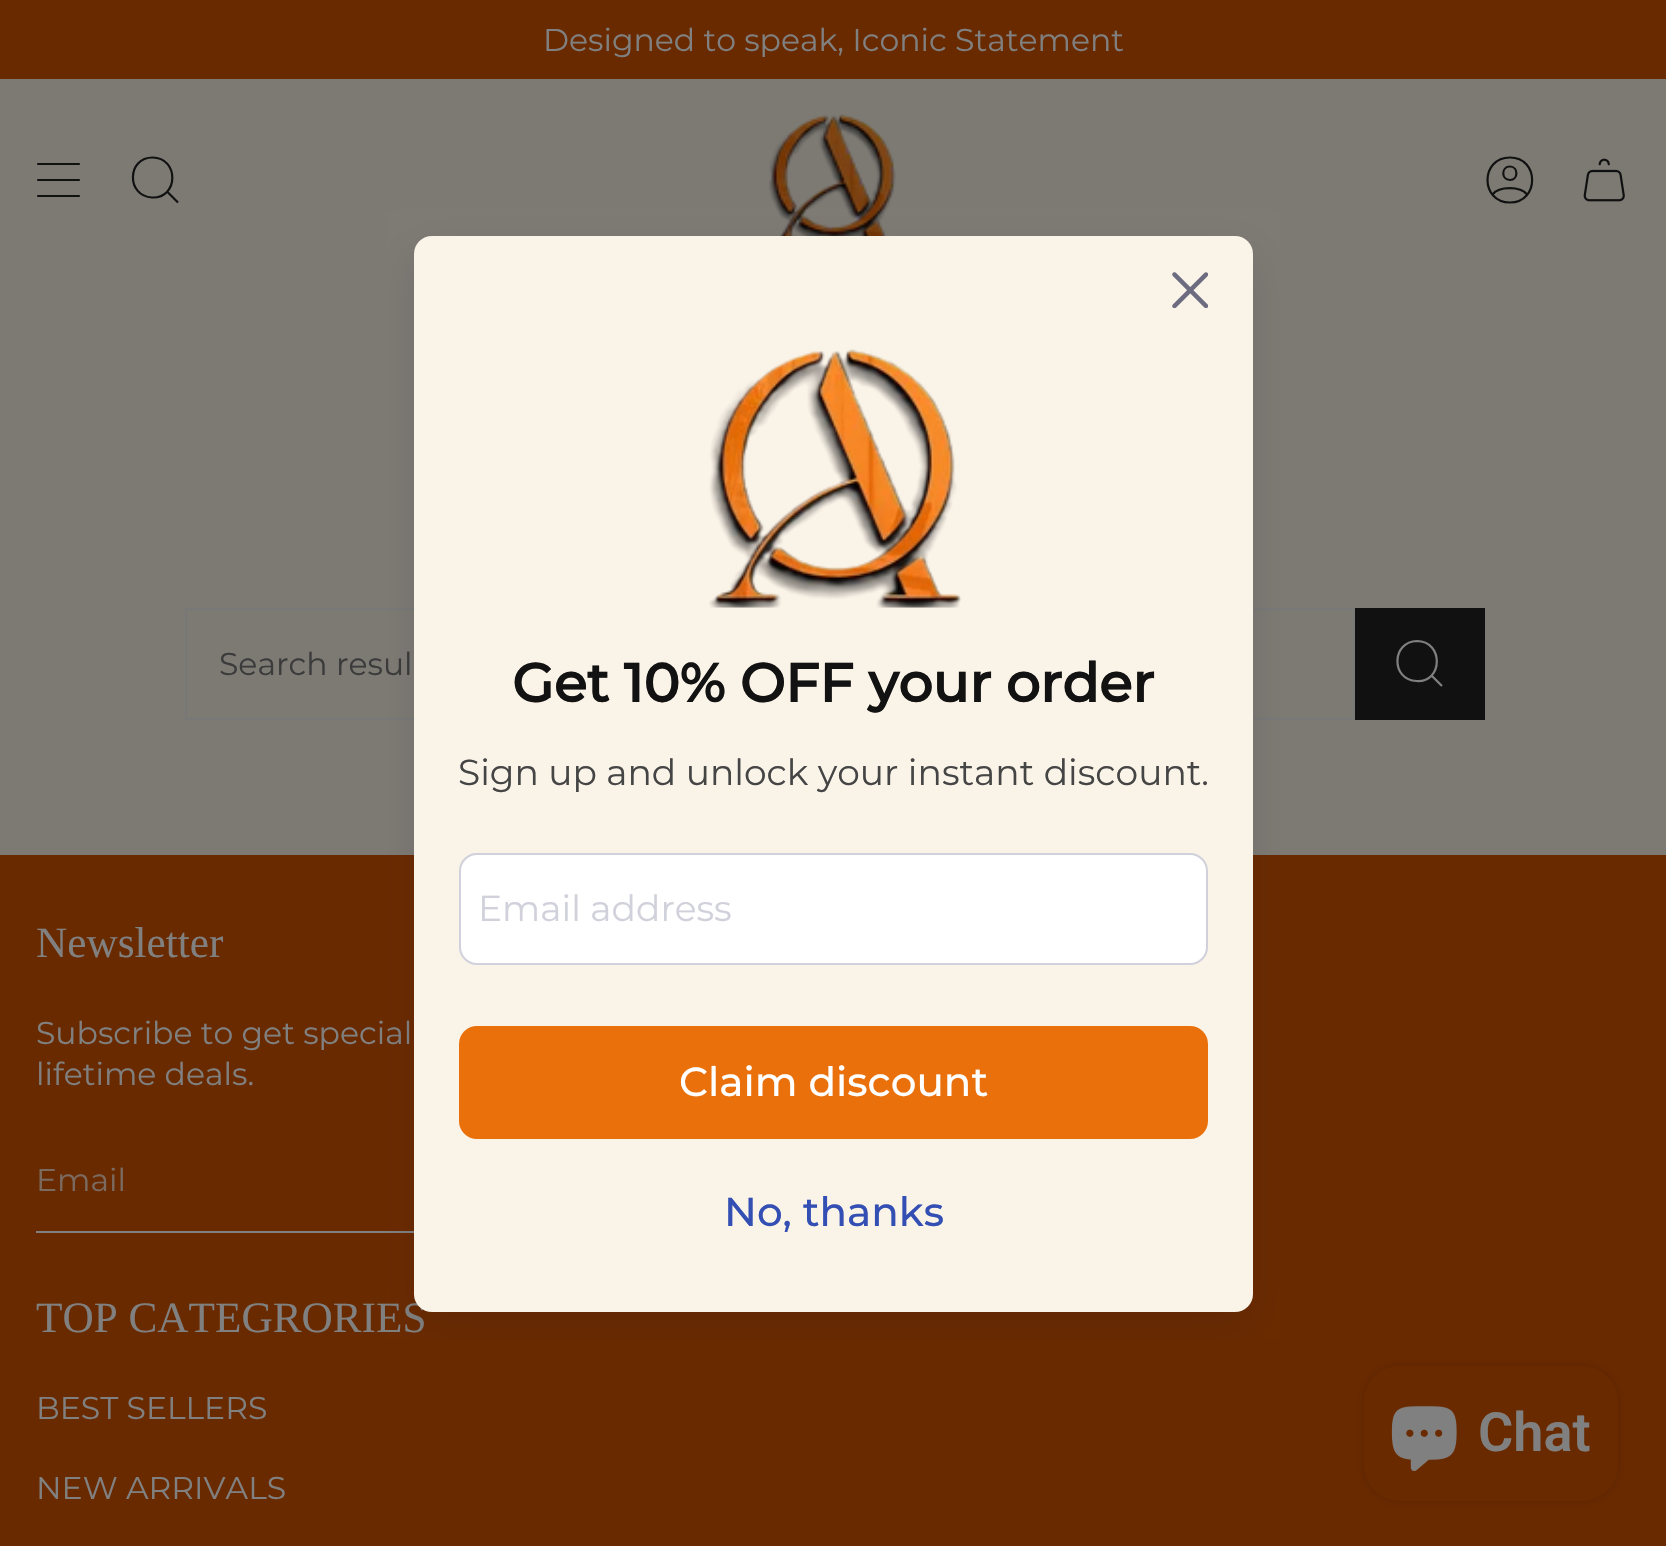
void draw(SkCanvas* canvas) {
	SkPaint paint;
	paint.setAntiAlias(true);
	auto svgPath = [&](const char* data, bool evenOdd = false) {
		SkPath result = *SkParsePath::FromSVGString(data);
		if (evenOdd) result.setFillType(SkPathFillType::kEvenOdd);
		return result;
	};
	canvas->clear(0xff7d7a74);
	paint.setColor(0xff6a2a00);
	canvas->drawRect(SkRect::MakeXYWH(0, 0, 1666, 79), paint);
	SkFont f1(fontMgr->matchFamilyStyle("Montserrat", SkFontStyle::Normal()), 31.5);
	f1.setSubpixel(true);
	paint.setColor(0xff808080);
	canvas->drawString("Designed to speak, Iconic Statement", 543, 51, f1, paint);
	paint.setStroke(true);
	paint.setStrokeWidth(2.2);
	paint.setStrokeCap(SkPaint::kRound_Cap);
	paint.setStrokeJoin(SkPaint::kRound_Join);
	paint.setColor(0xff111111);
	canvas->drawPath(svgPath("M38 164H79M38 180H79M38 196H79"), paint);
	paint.setStrokeCap(SkPaint::kButt_Cap);
	paint.setStrokeJoin(SkPaint::kMiter_Join);
	canvas->drawPath(svgPath("M152.5 157.5C179 157.5 179 198.5 152 197.5C126 196 127 157.5 152.5 157.5ZM167 191.5L178 202.5"), paint);
	canvas->drawImageRect(SkImages::DeferredFromEncodedData(SkData::MakeFromFileName("img1.png")), SkRect::MakeXYWH(769, 114, 127, 122), SkSamplingOptions());
	paint.setStrokeCap(SkPaint::kRound_Cap);
	paint.setStrokeJoin(SkPaint::kRound_Join);
	canvas->drawPath(svgPath("M1510 157.5C1480 157.5 1480 202.5 1510 202.5C1539.5 202.5 1539.5 157.5 1510 157.5ZM1492.5 194.5C1499 186 1520.5 186 1527 194.5M1510 180C1518.5 180 1518.5 166.5 1510 166.5C1501 166.5 1501 180 1510 180Z"), paint);
	canvas->drawImageRect(SkImages::DeferredFromEncodedData(SkData::MakeFromFileName("img2.png")), SkRect::MakeXYWH(1583, 158, 42, 44), SkSamplingOptions());
	paint.setStrokeWidth(2);
	paint.setStrokeCap(SkPaint::kButt_Cap);
	paint.setStrokeJoin(SkPaint::kMiter_Join);
	paint.setColor(0xff787878);
	canvas->drawRect(SkRect::MakeXYWH(186, 609, 1168, 110), paint);
	paint.setStroke(false);
	paint.setColor(0xff3b3b3b);
	canvas->drawString("Search resul", 219, 675, f1, paint);
	paint.setColor(0xff111111);
	canvas->drawRect(SkRect::MakeXYWH(1355, 608, 130, 112), paint);
	paint.setStroke(true);
	paint.setStrokeWidth(2.2);
	paint.setColor(0xff808080);
	canvas->drawPath(svgPath("M1417 641C1443.5 641 1443.5 682.5 1416.5 681C1390.5 680 1391.5 641.5 1417 641ZM1431.5 675.5L1442 686"), paint);
	paint.setStroke(false);
	paint.setColor(0xff6a2a00);
	canvas->drawRect(SkRect::MakeXYWH(0, 855, 1666, 691), paint);
	SkFont f2(fontMgr->matchFamilyStyle("Liberation Serif", SkFontStyle::Normal()), 43.25);
	f2.setSubpixel(true);
	paint.setColor(0xff808080);
	canvas->drawString("Newsletter", 36, 957, f2, paint);
	canvas->drawString("Subscribe to get special", 36, 1044, f1, paint);
	canvas->drawString("lifetime deals.", 36, 1085, f1, paint);
	canvas->drawRect(SkRect::MakeXYWH(36, 1231, 378, 2), paint);
	paint.setColor(0xff7a6a60);
	canvas->drawString("Email", 36, 1191, f1, paint);
	paint.setColor(0xff808080);
	canvas->drawString("TOP CATEGRORIES", 36, 1332, f2, paint);
	canvas->drawString("BEST SELLERS", 36, 1419, f1, paint);
	canvas->drawString("NEW ARRIVALS", 36, 1499, f1, paint);
	canvas->save();
	canvas->clipRect(SkRect::MakeXYWH(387, 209, 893, 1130));
	paint.setColor(0x1a121127);
	paint.setMaskFilter(SkMaskFilter::MakeBlur(kNormal_SkBlurStyle, 22.5));
	canvas->drawRoundRect(SkRect::MakeXYWH(414, 254, 839, 1076), 18, 18, paint);
	paint.setMaskFilter(nullptr);
	canvas->restore();
	paint.setColor(0xfffaf3e8);
	canvas->drawRoundRect(SkRect::MakeXYWH(414, 236, 839, 1076), 18, 18, paint);
	canvas->drawImageRect(SkImages::DeferredFromEncodedData(SkData::MakeFromFileName("img3.png")), SkRect::MakeXYWH(1172, 272, 36, 36), SkSamplingOptions());
	canvas->drawImageRect(SkImages::DeferredFromEncodedData(SkData::MakeFromFileName("img4.png")), SkRect::MakeXYWH(709, 349, 253, 259), SkSamplingOptions());
	SkFont f3(fontMgr->matchFamilyStyle("Montserrat", SkFontStyle::Bold()), 54);
	f3.setSubpixel(true);
	paint.setColor(0xff121212);
	canvas->drawString("Get 10% OFF your order", 512, 702, f3, paint);
	SkFont f4(fontMgr->matchFamilyStyle("Montserrat", SkFontStyle::Normal()), 36);
	f4.setSubpixel(true);
	paint.setColor(0xff454545);
	canvas->drawString("Sign up and unlock your instant discount.", 458, 785, f4, paint);
	paint.setColor(0xffffffff);
	canvas->drawRoundRect(SkRect::MakeXYWH(460, 854, 747, 110), 17, 17, paint);
	paint.setStroke(true);
	paint.setStrokeWidth(2);
	paint.setColor(0xffd1d1db);
	canvas->drawRoundRect(SkRect::MakeXYWH(460, 854, 747, 110), 17, 17, paint);
	paint.setStroke(false);
	canvas->drawString("Email address", 478, 921, f4, paint);
	paint.setColor(0xffea700b);
	canvas->drawRoundRect(SkRect::MakeXYWH(459, 1026, 749, 113), 18, 18, paint);
	SkFont f5(fontMgr->matchFamilyStyle("Montserrat", SkFontStyle(500, SkFontStyle::kNormal_Width, SkFontStyle::kUpright_Slant)), 40.5);
	f5.setSubpixel(true);
	paint.setColor(0xffffffff);
	canvas->drawString("Claim discount", 679, 1096, f5, paint);
	paint.setColor(0xff334fb4);
	canvas->drawString("No, thanks", 724, 1226, f5, paint);
	paint.setColor(0x26000000);
	paint.setMaskFilter(SkMaskFilter::MakeBlur(kNormal_SkBlurStyle, 5.5));
	canvas->drawRoundRect(SkRect::MakeXYWH(1364, 1366, 254, 135), 36, 36, paint);
	paint.setMaskFilter(nullptr);
	paint.setColor(0xff6a2a00);
	canvas->drawRoundRect(SkRect::MakeXYWH(1364, 1366, 254, 135), 36, 36, paint);
	canvas->drawImageRect(SkImages::DeferredFromEncodedData(SkData::MakeFromFileName("img5.png")), SkRect::MakeXYWH(1391, 1406, 66, 65), SkSamplingOptions());
	SkFont f6(fontMgr->matchFamilyStyle("Roboto", SkFontStyle(600, SkFontStyle::kNormal_Width, SkFontStyle::kUpright_Slant)), 54);
	f6.setSubpixel(true);
	paint.setColor(0xff808080);
	canvas->drawString("Chat", 1478, 1451, f6, paint);
}
